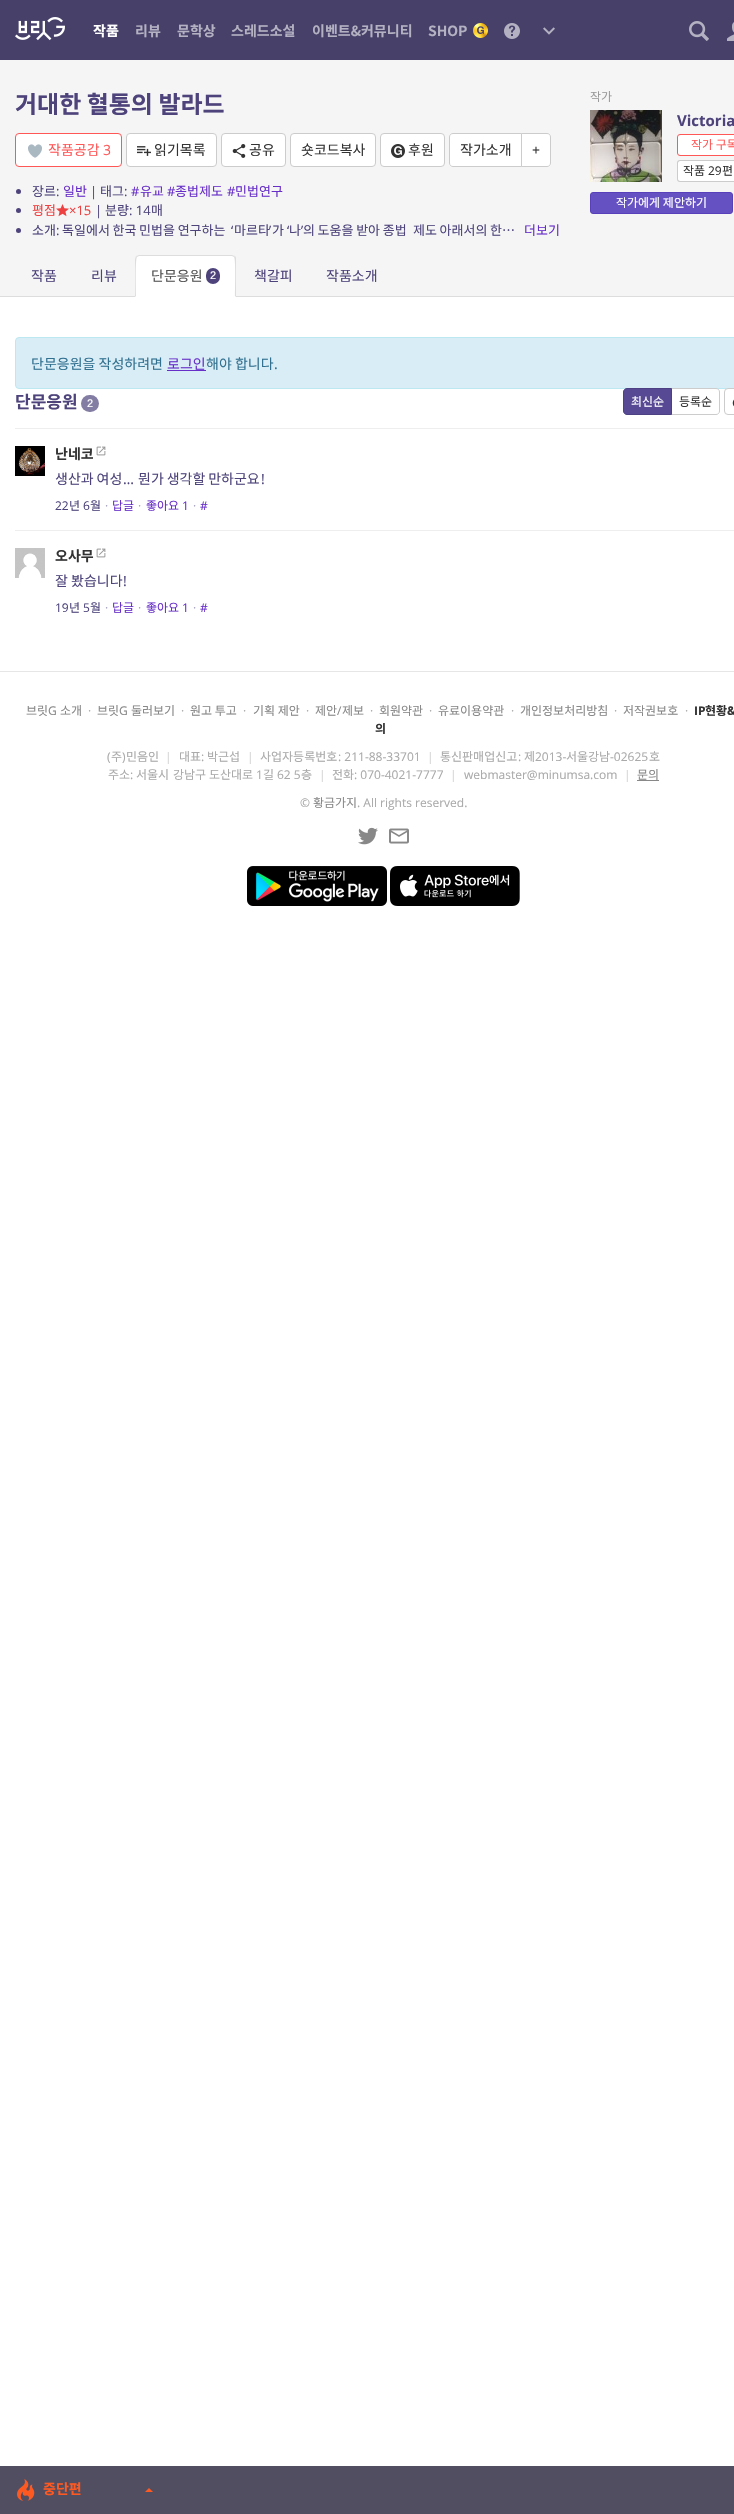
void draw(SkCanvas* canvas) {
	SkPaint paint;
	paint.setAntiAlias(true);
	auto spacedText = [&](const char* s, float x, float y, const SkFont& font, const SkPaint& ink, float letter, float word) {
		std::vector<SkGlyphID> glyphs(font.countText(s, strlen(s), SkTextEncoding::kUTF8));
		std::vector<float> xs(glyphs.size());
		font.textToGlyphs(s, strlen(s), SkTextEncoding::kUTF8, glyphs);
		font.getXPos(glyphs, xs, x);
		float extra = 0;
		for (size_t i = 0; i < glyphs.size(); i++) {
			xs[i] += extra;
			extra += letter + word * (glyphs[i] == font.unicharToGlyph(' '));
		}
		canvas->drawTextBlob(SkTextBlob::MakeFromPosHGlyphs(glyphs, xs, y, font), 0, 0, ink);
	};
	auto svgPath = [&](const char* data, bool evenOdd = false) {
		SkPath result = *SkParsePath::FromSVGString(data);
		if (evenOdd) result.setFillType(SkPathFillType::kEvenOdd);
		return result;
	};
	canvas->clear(0xffffffff);
	paint.setColor(0xff474069);
	canvas->drawRect(SkRect::MakeXYWH(0, 0, 734, 60), paint);
	canvas->drawImageRect(SkImages::DeferredFromEncodedData(SkData::MakeFromFileName("img1.png")), SkRect::MakeXYWH(15, 17, 50, 24), SkSamplingOptions());
	SkFont f1(fontMgr->matchFamilyStyle("Noto Sans KR", SkFontStyle::Bold()), 14);
	f1.setSubpixel(true);
	paint.setColor(0xffffffff);
	canvas->drawString("작품", 93, 36, f1, paint);
	paint.setColor(0xffb4b1c2);
	canvas->drawString("리뷰", 135, 36, f1, paint);
	canvas->drawString("문학상", 177, 36, f1, paint);
	canvas->drawString("스레드소설", 231, 36, f1, paint);
	canvas->drawString("이벤트&커뮤니티", 312, 36, f1, paint);
	canvas->drawString("SHOP", 428, 36, f1, paint);
	canvas->drawImageRect(SkImages::DeferredFromEncodedData(SkData::MakeFromFileName("img2.png")), SkRect::MakeXYWH(473, 23, 15, 15), SkSamplingOptions());
	canvas->drawImageRect(SkImages::DeferredFromEncodedData(SkData::MakeFromFileName("img3.png")), SkRect::MakeXYWH(504, 23, 16, 16), SkSamplingOptions());
	canvas->drawImageRect(SkImages::DeferredFromEncodedData(SkData::MakeFromFileName("img4.png")), SkRect::MakeXYWH(543, 27, 12, 8), SkSamplingOptions());
	canvas->drawImageRect(SkImages::DeferredFromEncodedData(SkData::MakeFromFileName("img5.png")), SkRect::MakeXYWH(689, 21, 20, 20), SkSamplingOptions());
	canvas->drawImageRect(SkImages::DeferredFromEncodedData(SkData::MakeFromFileName("img6.png")), SkRect::MakeXYWH(727, 22, 7, 19), SkSamplingOptions());
	paint.setColor(0xfff5f5f5);
	canvas->drawRect(SkRect::MakeXYWH(0, 60, 734, 236), paint);
	paint.setColor(0xffdddddd);
	canvas->drawRect(SkRect::MakeXYWH(0, 296, 734, 1), paint);
	SkFont f2(fontMgr->matchFamilyStyle("Noto Sans KR", SkFontStyle::Bold()), 24);
	f2.setSubpixel(true);
	paint.setColor(0xff4e447b);
	canvas->drawString("거대한 혈통의 발라드", 15, 113, f2, paint);
	paint.setColor(0xffffffff);
	canvas->drawRoundRect(SkRect::MakeXYWH(15.5, 133.5, 106, 33), 3.5, 3.5, paint);
	paint.setStroke(true);
	paint.setStrokeWidth(1);
	paint.setColor(0xffff5656);
	canvas->drawRoundRect(SkRect::MakeXYWH(15.5, 133.5, 106, 33), 3.5, 3.5, paint);
	canvas->drawImageRect(SkImages::DeferredFromEncodedData(SkData::MakeFromFileName("img7.png")), SkRect::MakeXYWH(28, 144, 14, 14), SkSamplingOptions());
	SkFont f3(fontMgr->matchFamilyStyle("Noto Sans KR", SkFontStyle::Normal()), 14);
	f3.setSubpixel(true);
	paint.setStroke(false);
	canvas->drawString("작품공감", 48, 155, f3, paint);
	SkFont f4(fontMgr->matchFamilyStyle("Open Sans", SkFontStyle::Normal()), 14);
	f4.setSubpixel(true);
	canvas->drawString("3", 103, 155, f4, paint);
	paint.setColor(0xffffffff);
	canvas->drawRoundRect(SkRect::MakeXYWH(126.5, 133.5, 90, 33), 3.5, 3.5, paint);
	paint.setStroke(true);
	paint.setColor(0xffcccccc);
	canvas->drawRoundRect(SkRect::MakeXYWH(126.5, 133.5, 90, 33), 3.5, 3.5, paint);
	canvas->drawImageRect(SkImages::DeferredFromEncodedData(SkData::MakeFromFileName("img8.png")), SkRect::MakeXYWH(137, 146, 14, 10), SkSamplingOptions());
	paint.setStroke(false);
	paint.setColor(0xff333333);
	canvas->drawString("읽기목록", 154, 155, f3, paint);
	paint.setColor(0xffffffff);
	canvas->drawRoundRect(SkRect::MakeXYWH(221.5, 133.5, 64, 33), 3.5, 3.5, paint);
	paint.setStroke(true);
	paint.setColor(0xffcccccc);
	canvas->drawRoundRect(SkRect::MakeXYWH(221.5, 133.5, 64, 33), 3.5, 3.5, paint);
	canvas->drawImageRect(SkImages::DeferredFromEncodedData(SkData::MakeFromFileName("img9.png")), SkRect::MakeXYWH(232, 144, 14, 14), SkSamplingOptions());
	paint.setStroke(false);
	paint.setColor(0xff333333);
	canvas->drawString("공유", 249, 155, f3, paint);
	paint.setColor(0xffffffff);
	canvas->drawRoundRect(SkRect::MakeXYWH(290.5, 133.5, 85, 33), 3.5, 3.5, paint);
	paint.setStroke(true);
	paint.setColor(0xffcccccc);
	canvas->drawRoundRect(SkRect::MakeXYWH(290.5, 133.5, 85, 33), 3.5, 3.5, paint);
	paint.setStroke(false);
	paint.setColor(0xff333333);
	canvas->drawString("숏코드복사", 301, 155, f3, paint);
	paint.setColor(0xffffffff);
	canvas->drawRoundRect(SkRect::MakeXYWH(380.5, 133.5, 64, 33), 3.5, 3.5, paint);
	paint.setStroke(true);
	paint.setColor(0xffcccccc);
	canvas->drawRoundRect(SkRect::MakeXYWH(380.5, 133.5, 64, 33), 3.5, 3.5, paint);
	canvas->drawImageRect(SkImages::DeferredFromEncodedData(SkData::MakeFromFileName("img10.png")), SkRect::MakeXYWH(391, 144, 14, 14), SkSamplingOptions());
	paint.setStroke(false);
	paint.setColor(0xff333333);
	canvas->drawString("후원", 408, 155, f3, paint);
	paint.setColor(0xffffffff);
	canvas->drawPath(svgPath("M453 133.5H521.5V166.5H453C451 166.5 449.5 165 449.5 163V137C449.5 135 451 133.5 453 133.5Z"), paint);
	paint.setStroke(true);
	paint.setColor(0xffcccccc);
	canvas->drawPath(svgPath("M453 133.5H521.5V166.5H453C451 166.5 449.5 165 449.5 163V137C449.5 135 451 133.5 453 133.5Z"), paint);
	paint.setStroke(false);
	paint.setColor(0xff333333);
	canvas->drawString("작가소개", 460, 155, f3, paint);
	paint.setColor(0xffffffff);
	canvas->drawPath(svgPath("M521.5 133.5H547C549 133.5 550.5 135 550.5 137V163C550.5 165 549 166.5 547 166.5H521.5Z"), paint);
	paint.setStroke(true);
	paint.setColor(0xffcccccc);
	canvas->drawPath(svgPath("M521.5 133.5H547C549 133.5 550.5 135 550.5 137V163C550.5 165 549 166.5 547 166.5H521.5Z"), paint);
	paint.setStroke(false);
	paint.setColor(0xff333333);
	canvas->drawString("+", 532, 155, f4, paint);
	paint.setColor(0xff4e447b);
	canvas->drawCircle(18.5, 191.5, 2.5, paint);
	SkFont f5(fontMgr->matchFamilyStyle("Noto Sans KR", SkFontStyle::Normal()), 13);
	f5.setSubpixel(true);
	canvas->drawString("장르", 32, 196, f5, paint);
	SkFont f6(fontMgr->matchFamilyStyle("Open Sans", SkFontStyle::Normal()), 13);
	f6.setSubpixel(true);
	canvas->drawString(":", 56, 196, f6, paint);
	paint.setColor(0xff672ec8);
	canvas->drawString("일반", 63, 196, f5, paint);
	paint.setColor(0xff4e447b);
	canvas->drawString("|", 90, 196, f6, paint);
	canvas->drawString("태그", 100, 196, f5, paint);
	canvas->drawString(":", 124, 196, f6, paint);
	paint.setColor(0xff672ec8);
	canvas->drawString("#", 131, 196, f6, paint);
	canvas->drawString("유교", 140, 196, f5, paint);
	canvas->drawString("#", 167, 196, f6, paint);
	canvas->drawString("종법제도", 175, 196, f5, paint);
	canvas->drawString("#", 227, 196, f6, paint);
	canvas->drawString("민법연구", 235, 196, f5, paint);
	paint.setColor(0xff4e447b);
	canvas->drawCircle(18.5, 210.5, 2.5, paint);
	paint.setColor(0xffed4141);
	canvas->drawString("평점", 32, 215, f5, paint);
	canvas->drawImageRect(SkImages::DeferredFromEncodedData(SkData::MakeFromFileName("img11.png")), SkRect::MakeXYWH(56, 204, 13, 13), SkSamplingOptions());
	canvas->drawString("×15", 69, 215, f6, paint);
	paint.setColor(0xff4e447b);
	canvas->drawString("|", 95, 215, f6, paint);
	canvas->drawString("분량", 105, 215, f5, paint);
	canvas->drawString(": 14", 129, 215, f6, paint);
	canvas->drawString("매", 151, 215, f5, paint);
	canvas->drawCircle(18.5, 230.5, 2.5, paint);
	canvas->drawString("소개", 32, 235, f5, paint);
	canvas->drawString(":", 56, 235, f6, paint);
	spacedText("독일에서 한국 민법을 연구하는", 62, 235, f5, paint, 0, -0.25);
	canvas->drawString("‘", 231, 235, f6, paint);
	canvas->drawString("마르타", 234, 235, f5, paint);
	canvas->drawString("’", 269, 235, f6, paint);
	canvas->drawString("가", 272, 235, f5, paint);
	canvas->drawString("‘", 287, 235, f6, paint);
	canvas->drawString("나", 289, 235, f5, paint);
	canvas->drawString("’", 301, 235, f6, paint);
	spacedText("의 도움을 받아 종법", 303, 235, f5, paint, 0, -0.25);
	spacedText("제도 아래서의 한…", 413, 235, f5, paint, 0, -0.25);
	paint.setColor(0xff672ec8);
	canvas->drawString("더보기", 524, 235, f5, paint);
	SkFont f7(fontMgr->matchFamilyStyle("Noto Sans KR", SkFontStyle::Normal()), 12);
	f7.setSubpixel(true);
	paint.setColor(0xff999999);
	canvas->drawString("작가", 590, 101, f7, paint);
	canvas->drawImageRect(SkImages::DeferredFromEncodedData(SkData::MakeFromFileName("img12.png")), SkRect::MakeXYWH(590, 110, 72, 72), SkSamplingOptions());
	SkFont f8(fontMgr->matchFamilyStyle("Open Sans", SkFontStyle::Bold()), 15);
	f8.setSubpixel(true);
	paint.setColor(0xff4e447b);
	canvas->drawString("Victoria", 677, 126, f8, paint);
	paint.setColor(0xffffffff);
	canvas->drawRoundRect(SkRect::MakeXYWH(677.5, 134.5, 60, 21), 2.5, 2.5, paint);
	paint.setStroke(true);
	paint.setColor(0xffff5656);
	canvas->drawRoundRect(SkRect::MakeXYWH(677.5, 134.5, 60, 21), 2.5, 2.5, paint);
	paint.setStroke(false);
	canvas->drawString("작가 구독", 691, 149, f7, paint);
	paint.setColor(0xffffffff);
	canvas->drawPath(svgPath("M680 161H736V181H680C679 181 678 180 678 179V163C678 162 679 161 680 161Z"), paint);
	paint.setColor(0xffcccccc);
	canvas->drawPath(svgPath("M680 160H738V182H680C678 182 677 181 677 179V163C677 161 678 160 680 160ZM680 161H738V181H680C679 181 678 180 678 179V163C678 162 679 161 680 161Z", true), paint);
	paint.setColor(0xff333333);
	canvas->drawString("작품", 683, 175, f7, paint);
	SkFont f9(fontMgr->matchFamilyStyle("Open Sans", SkFontStyle::Normal()), 12);
	f9.setSubpixel(true);
	canvas->drawString("29", 708, 175, f9, paint);
	canvas->drawString("편", 722, 175, f7, paint);
	paint.setColor(0xff6651c3);
	canvas->drawRoundRect(SkRect::MakeXYWH(590.5, 192.5, 142, 21), 2.5, 2.5, paint);
	paint.setStroke(true);
	paint.setColor(0xff5740ba);
	canvas->drawRoundRect(SkRect::MakeXYWH(590.5, 192.5, 142, 21), 2.5, 2.5, paint);
	paint.setStroke(false);
	paint.setColor(0xffffffff);
	canvas->drawString("작가에게 제안하기", 616, 207, f7, paint);
	paint.setColor(0xff4e447b);
	canvas->drawString("작품", 31, 281, f3, paint);
	canvas->drawString("리뷰", 91, 281, f3, paint);
	paint.setColor(0xffffffff);
	canvas->drawPath(svgPath("M139 255H232C234 255 236 257 236 259V297H135V259C135 257 137 255 139 255Z"), paint);
	paint.setColor(0xffdddddd);
	canvas->drawPath(svgPath("M139 255L136 256L137 257L139 256H232L234 257L235 256L232 255Z"), paint);
	canvas->drawPath(svgPath("M236 297V259C236 258 236 257 235 256L234 257C236 259 235 291 235 296Z"), paint);
	canvas->drawPath(svgPath("M135 297L136 296C136 291 135 259 137 257L136 256L135 259Z"), paint);
	paint.setColor(0xff555555);
	canvas->drawString("단문응원", 151, 281, f3, paint);
	paint.setColor(0xff4e447b);
	canvas->drawRoundRect(SkRect::MakeXYWH(206, 268, 14, 16), 7, 7, paint);
	SkFont f10(fontMgr->matchFamilyStyle("Liberation Sans", SkFontStyle::Normal()), 11);
	f10.setSubpixel(true);
	paint.setColor(0xffffffff);
	canvas->drawString("2", 210, 279, f10, paint);
	paint.setColor(0xff4e447b);
	canvas->drawString("책갈피", 254, 281, f3, paint);
	canvas->drawString("작품소개", 326, 281, f3, paint);
	paint.setColor(0xffd9edf7);
	canvas->drawRoundRect(SkRect::MakeXYWH(15.5, 337.5, 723, 51), 3.5, 3.5, paint);
	paint.setStroke(true);
	paint.setColor(0xffbce8f1);
	canvas->drawRoundRect(SkRect::MakeXYWH(15.5, 337.5, 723, 51), 3.5, 3.5, paint);
	paint.setStroke(false);
	paint.setColor(0xff31708f);
	canvas->drawString("단문응원을 작성하려면", 31, 369, f3, paint);
	paint.setColor(0xff672ec8);
	canvas->drawString("로그인", 167, 369, f3, paint);
	canvas->drawRect(SkRect::MakeXYWH(167, 370, 39, 1), paint);
	paint.setColor(0xff31708f);
	canvas->drawString("해야 합니다", 206, 369, f3, paint);
	canvas->drawString(".", 274, 369, f4, paint);
	SkFont f11(fontMgr->matchFamilyStyle("Noto Sans KR", SkFontStyle::Bold()), 17);
	f11.setSubpixel(true);
	paint.setColor(0xff4e447b);
	canvas->drawString("단문응원", 15, 408, f11, paint);
	paint.setColor(0xff837ca3);
	canvas->drawRoundRect(SkRect::MakeXYWH(81, 395, 18, 17), 8.5, 8.5, paint);
	paint.setColor(0xffffffff);
	canvas->drawString("2", 87, 407, f10, paint);
	canvas->drawPath(svgPath("M671.5 388.5H716C718 388.5 719.5 390 719.5 392V411C719.5 413 718 414.5 716 414.5H671.5Z"), paint);
	paint.setStroke(true);
	paint.setColor(0xffcccccc);
	canvas->drawPath(svgPath("M671.5 388.5H716C718 388.5 719.5 390 719.5 392V411C719.5 413 718 414.5 716 414.5H671.5Z"), paint);
	paint.setStroke(false);
	paint.setColor(0xff574994);
	canvas->drawPath(svgPath("M627 388.5H671.5V414.5H627C625 414.5 623.5 413 623.5 411V392C623.5 390 625 388.5 627 388.5Z"), paint);
	paint.setStroke(true);
	paint.setColor(0xff4d4183);
	canvas->drawPath(svgPath("M627 388.5H671.5V414.5H627C625 414.5 623.5 413 623.5 411V392C623.5 390 625 388.5 627 388.5Z"), paint);
	paint.setStroke(false);
	paint.setColor(0xffffffff);
	canvas->drawString("최신순", 631, 406, f7, paint);
	paint.setColor(0xff333333);
	canvas->drawString("등록순", 679, 406, f7, paint);
	paint.setColor(0xffffffff);
	canvas->drawRoundRect(SkRect::MakeXYWH(724.5, 388.5, 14, 26), 3.5, 3.5, paint);
	paint.setStroke(true);
	paint.setColor(0xffcccccc);
	canvas->drawRoundRect(SkRect::MakeXYWH(724.5, 388.5, 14, 26), 3.5, 3.5, paint);
	canvas->drawImageRect(SkImages::DeferredFromEncodedData(SkData::MakeFromFileName("img13.png")), SkRect::MakeXYWH(732, 399, 2, 8), SkSamplingOptions());
	paint.setStroke(false);
	paint.setColor(0xffeeeeee);
	canvas->drawRect(SkRect::MakeXYWH(15, 428, 719, 1), paint);
	canvas->drawRect(SkRect::MakeXYWH(15, 530, 719, 1), paint);
	canvas->drawImageRect(SkImages::DeferredFromEncodedData(SkData::MakeFromFileName("img14.png")), SkRect::MakeXYWH(15, 446, 30, 30), SkSamplingOptions());
	paint.setColor(0xff333333);
	canvas->drawString("난네코", 55, 459, f1, paint);
	canvas->drawImageRect(SkImages::DeferredFromEncodedData(SkData::MakeFromFileName("img15.png")), SkRect::MakeXYWH(96, 446, 10, 10), SkSamplingOptions());
	paint.setColor(0xff4e447b);
	spacedText("생산과 여성", 55, 484, f3, paint, 0, -0.25);
	canvas->drawString("…", 123, 484, f4, paint);
	spacedText("뭔가 생각할 만하군요", 138, 484, f3, paint, 0, -0.25);
	canvas->drawString("!", 261, 484, f4, paint);
	canvas->drawString("22", 55, 510, f9, paint);
	canvas->drawString("년", 69, 510, f7, paint);
	canvas->drawString("6", 83, 510, f9, paint);
	canvas->drawString("월", 90, 510, f7, paint);
	paint.setColor(0xffa7a2bd);
	canvas->drawString("·", 105, 510, f9, paint);
	paint.setColor(0xff672ec8);
	canvas->drawString("답글", 112, 510, f7, paint);
	paint.setColor(0xffa7a2bd);
	canvas->drawString("·", 138, 510, f9, paint);
	paint.setColor(0xff672ec8);
	canvas->drawString("좋아요", 146, 510, f7, paint);
	canvas->drawString("1", 182, 510, f9, paint);
	paint.setColor(0xffa7a2bd);
	canvas->drawString("·", 193, 510, f9, paint);
	paint.setColor(0xff672ec8);
	canvas->drawString("#", 200, 510, f9, paint);
	canvas->drawImageRect(SkImages::DeferredFromEncodedData(SkData::MakeFromFileName("img16.png")), SkRect::MakeXYWH(15, 548, 30, 30), SkSamplingOptions());
	paint.setColor(0xff333333);
	canvas->drawString("오사무", 55, 561, f1, paint);
	canvas->drawImageRect(SkImages::DeferredFromEncodedData(SkData::MakeFromFileName("img15.png")), SkRect::MakeXYWH(96, 548, 10, 10), SkSamplingOptions());
	paint.setColor(0xff4e447b);
	canvas->drawString("잘 봤습니다", 55, 586, f3, paint);
	canvas->drawString("!", 123, 586, f4, paint);
	canvas->drawString("19", 55, 612, f9, paint);
	canvas->drawString("년", 69, 612, f7, paint);
	canvas->drawString("5", 83, 612, f9, paint);
	canvas->drawString("월", 90, 612, f7, paint);
	paint.setColor(0xffa7a2bd);
	canvas->drawString("·", 105, 612, f9, paint);
	paint.setColor(0xff672ec8);
	canvas->drawString("답글", 112, 612, f7, paint);
	paint.setColor(0xffa7a2bd);
	canvas->drawString("·", 138, 612, f9, paint);
	paint.setColor(0xff672ec8);
	canvas->drawString("좋아요", 146, 612, f7, paint);
	canvas->drawString("1", 182, 612, f9, paint);
	paint.setColor(0xffa7a2bd);
	canvas->drawString("·", 193, 612, f9, paint);
	paint.setColor(0xff672ec8);
	canvas->drawString("#", 200, 612, f9, paint);
	paint.setColor(0xffe6e6e6);
	canvas->drawRect(SkRect::MakeXYWH(0, 671, 734, 1), paint);
	paint.setColor(0xff888888);
	canvas->drawString("브릿", 26, 715, f7, paint);
	canvas->drawString("G", 48, 715, f9, paint);
	canvas->drawString("소개", 60, 715, f7, paint);
	paint.setColor(0xffaaaaaa);
	canvas->drawString("·", 88, 715, f9, paint);
	paint.setColor(0xff888888);
	canvas->drawString("브릿", 97, 715, f7, paint);
	canvas->drawString("G", 119, 715, f9, paint);
	canvas->drawString("둘러보기", 131, 715, f7, paint);
	paint.setColor(0xffaaaaaa);
	canvas->drawString("·", 181, 715, f9, paint);
	paint.setColor(0xff888888);
	canvas->drawString("원고 투고", 190, 715, f7, paint);
	paint.setColor(0xffaaaaaa);
	canvas->drawString("·", 243, 715, f9, paint);
	paint.setColor(0xff888888);
	canvas->drawString("기획 제안", 253, 715, f7, paint);
	paint.setColor(0xffaaaaaa);
	canvas->drawString("·", 306, 715, f9, paint);
	paint.setColor(0xff888888);
	canvas->drawString("제안", 315, 715, f7, paint);
	canvas->drawString("/", 337, 715, f9, paint);
	canvas->drawString("제보", 342, 715, f7, paint);
	paint.setColor(0xffaaaaaa);
	canvas->drawString("·", 370, 715, f9, paint);
	paint.setColor(0xff888888);
	canvas->drawString("회원약관", 379, 715, f7, paint);
	paint.setColor(0xffaaaaaa);
	canvas->drawString("·", 429, 715, f9, paint);
	paint.setColor(0xff888888);
	canvas->drawString("유료이용약관", 438, 715, f7, paint);
	paint.setColor(0xffaaaaaa);
	canvas->drawString("·", 511, 715, f9, paint);
	paint.setColor(0xff888888);
	canvas->drawString("개인정보처리방침", 520, 715, f7, paint);
	paint.setColor(0xffaaaaaa);
	canvas->drawString("·", 614, 715, f9, paint);
	paint.setColor(0xff888888);
	canvas->drawString("저작권보호", 623, 715, f7, paint);
	paint.setColor(0xffaaaaaa);
	canvas->drawString("·", 685, 715, f9, paint);
	SkFont f12(fontMgr->matchFamilyStyle("Open Sans", SkFontStyle::Bold()), 12);
	f12.setSubpixel(true);
	paint.setColor(0xff333333);
	canvas->drawString("IP", 694, 715, f12, paint);
	SkFont f13(fontMgr->matchFamilyStyle("Noto Sans KR", SkFontStyle::Bold()), 12);
	f13.setSubpixel(true);
	canvas->drawString("현황", 705, 715, f13, paint);
	canvas->drawString("&", 727, 715, f12, paint);
	canvas->drawString("의", 375, 733, f13, paint);
	paint.setColor(0xffaaaaaa);
	canvas->drawString("(", 107, 761, f9, paint);
	canvas->drawString("주", 111, 761, f7, paint);
	canvas->drawString(")", 122, 761, f9, paint);
	canvas->drawString("민음인", 126, 761, f7, paint);
	paint.setColor(0xffd5d5d5);
	canvas->drawString("|", 165, 761, f9, paint);
	paint.setColor(0xffaaaaaa);
	canvas->drawString("대표", 179, 761, f7, paint);
	canvas->drawString(":", 201, 761, f9, paint);
	canvas->drawString("박근섭", 207, 761, f7, paint);
	paint.setColor(0xffd5d5d5);
	canvas->drawString("|", 247, 761, f9, paint);
	paint.setColor(0xffaaaaaa);
	canvas->drawString("사업자등록번호", 260, 761, f7, paint);
	canvas->drawString(": 211-88-33701", 338, 761, f9, paint);
	paint.setColor(0xffd5d5d5);
	canvas->drawString("|", 427, 761, f9, paint);
	paint.setColor(0xffaaaaaa);
	canvas->drawString("통신판매업신고", 440, 761, f7, paint);
	canvas->drawString(":", 518, 761, f9, paint);
	canvas->drawString("제", 524, 761, f7, paint);
	canvas->drawString("2013-", 535, 761, f9, paint);
	canvas->drawString("서울강남", 566, 761, f7, paint);
	canvas->drawString("-02625", 610, 761, f9, paint);
	canvas->drawString("호", 649, 761, f7, paint);
	canvas->drawString("주소", 108, 779, f7, paint);
	canvas->drawString(":", 130, 779, f9, paint);
	canvas->drawString("서울시", 136, 779, f7, paint);
	canvas->drawString("강남구", 173, 779, f7, paint);
	canvas->drawString("도산대로", 209, 779, f7, paint);
	canvas->drawString("1", 256, 779, f9, paint);
	canvas->drawString("길", 263, 779, f7, paint);
	canvas->drawString("62 5", 277, 779, f9, paint);
	canvas->drawString("층", 301, 779, f7, paint);
	paint.setColor(0xffd5d5d5);
	canvas->drawString("|", 319, 779, f9, paint);
	paint.setColor(0xffaaaaaa);
	canvas->drawString("전화", 332, 779, f7, paint);
	canvas->drawString(": 070-4021-7777", 354, 779, f9, paint);
	paint.setColor(0xffd5d5d5);
	canvas->drawString("|", 450, 779, f9, paint);
	paint.setColor(0xffaaaaaa);
	canvas->drawString("webmaster@minumsa.com", 464, 779, f9, paint);
	paint.setColor(0xffd5d5d5);
	canvas->drawString("|", 624, 779, f9, paint);
	paint.setColor(0xff888888);
	canvas->drawString("문의", 637, 779, f7, paint);
	canvas->drawRect(SkRect::MakeXYWH(637, 780, 22, 1), paint);
	paint.setColor(0xffaaaaaa);
	canvas->drawString("©", 300, 807, f9, paint);
	paint.setColor(0xff888888);
	canvas->drawString("황금가지", 313, 807, f7, paint);
	paint.setColor(0xffaaaaaa);
	canvas->drawString(". All rights reserved.", 357, 807, f9, paint);
	canvas->drawImageRect(SkImages::DeferredFromEncodedData(SkData::MakeFromFileName("img17.png")), SkRect::MakeXYWH(358, 827, 20, 18), SkSamplingOptions());
	canvas->drawImageRect(SkImages::DeferredFromEncodedData(SkData::MakeFromFileName("img18.png")), SkRect::MakeXYWH(389, 828, 20, 16), SkSamplingOptions());
	canvas->drawImageRect(SkImages::DeferredFromEncodedData(SkData::MakeFromFileName("img19.png")), SkRect::MakeXYWH(247, 866, 140, 40), SkSamplingOptions());
	canvas->drawImageRect(SkImages::DeferredFromEncodedData(SkData::MakeFromFileName("img20.png")), SkRect::MakeXYWH(390, 866, 130, 40), SkSamplingOptions());
	paint.setColor(0xff524e61);
	canvas->drawRect(SkRect::MakeXYWH(0, 2466, 734, 48), paint);
	canvas->drawImageRect(SkImages::DeferredFromEncodedData(SkData::MakeFromFileName("img21.png")), SkRect::MakeXYWH(17, 2479, 18, 22), SkSamplingOptions());
	paint.setColor(0xffff5922);
	canvas->drawString("중단편", 43, 2494, f1, paint);
	canvas->drawPath(svgPath("M153 2492H145L149 2488Z"), paint);
}
